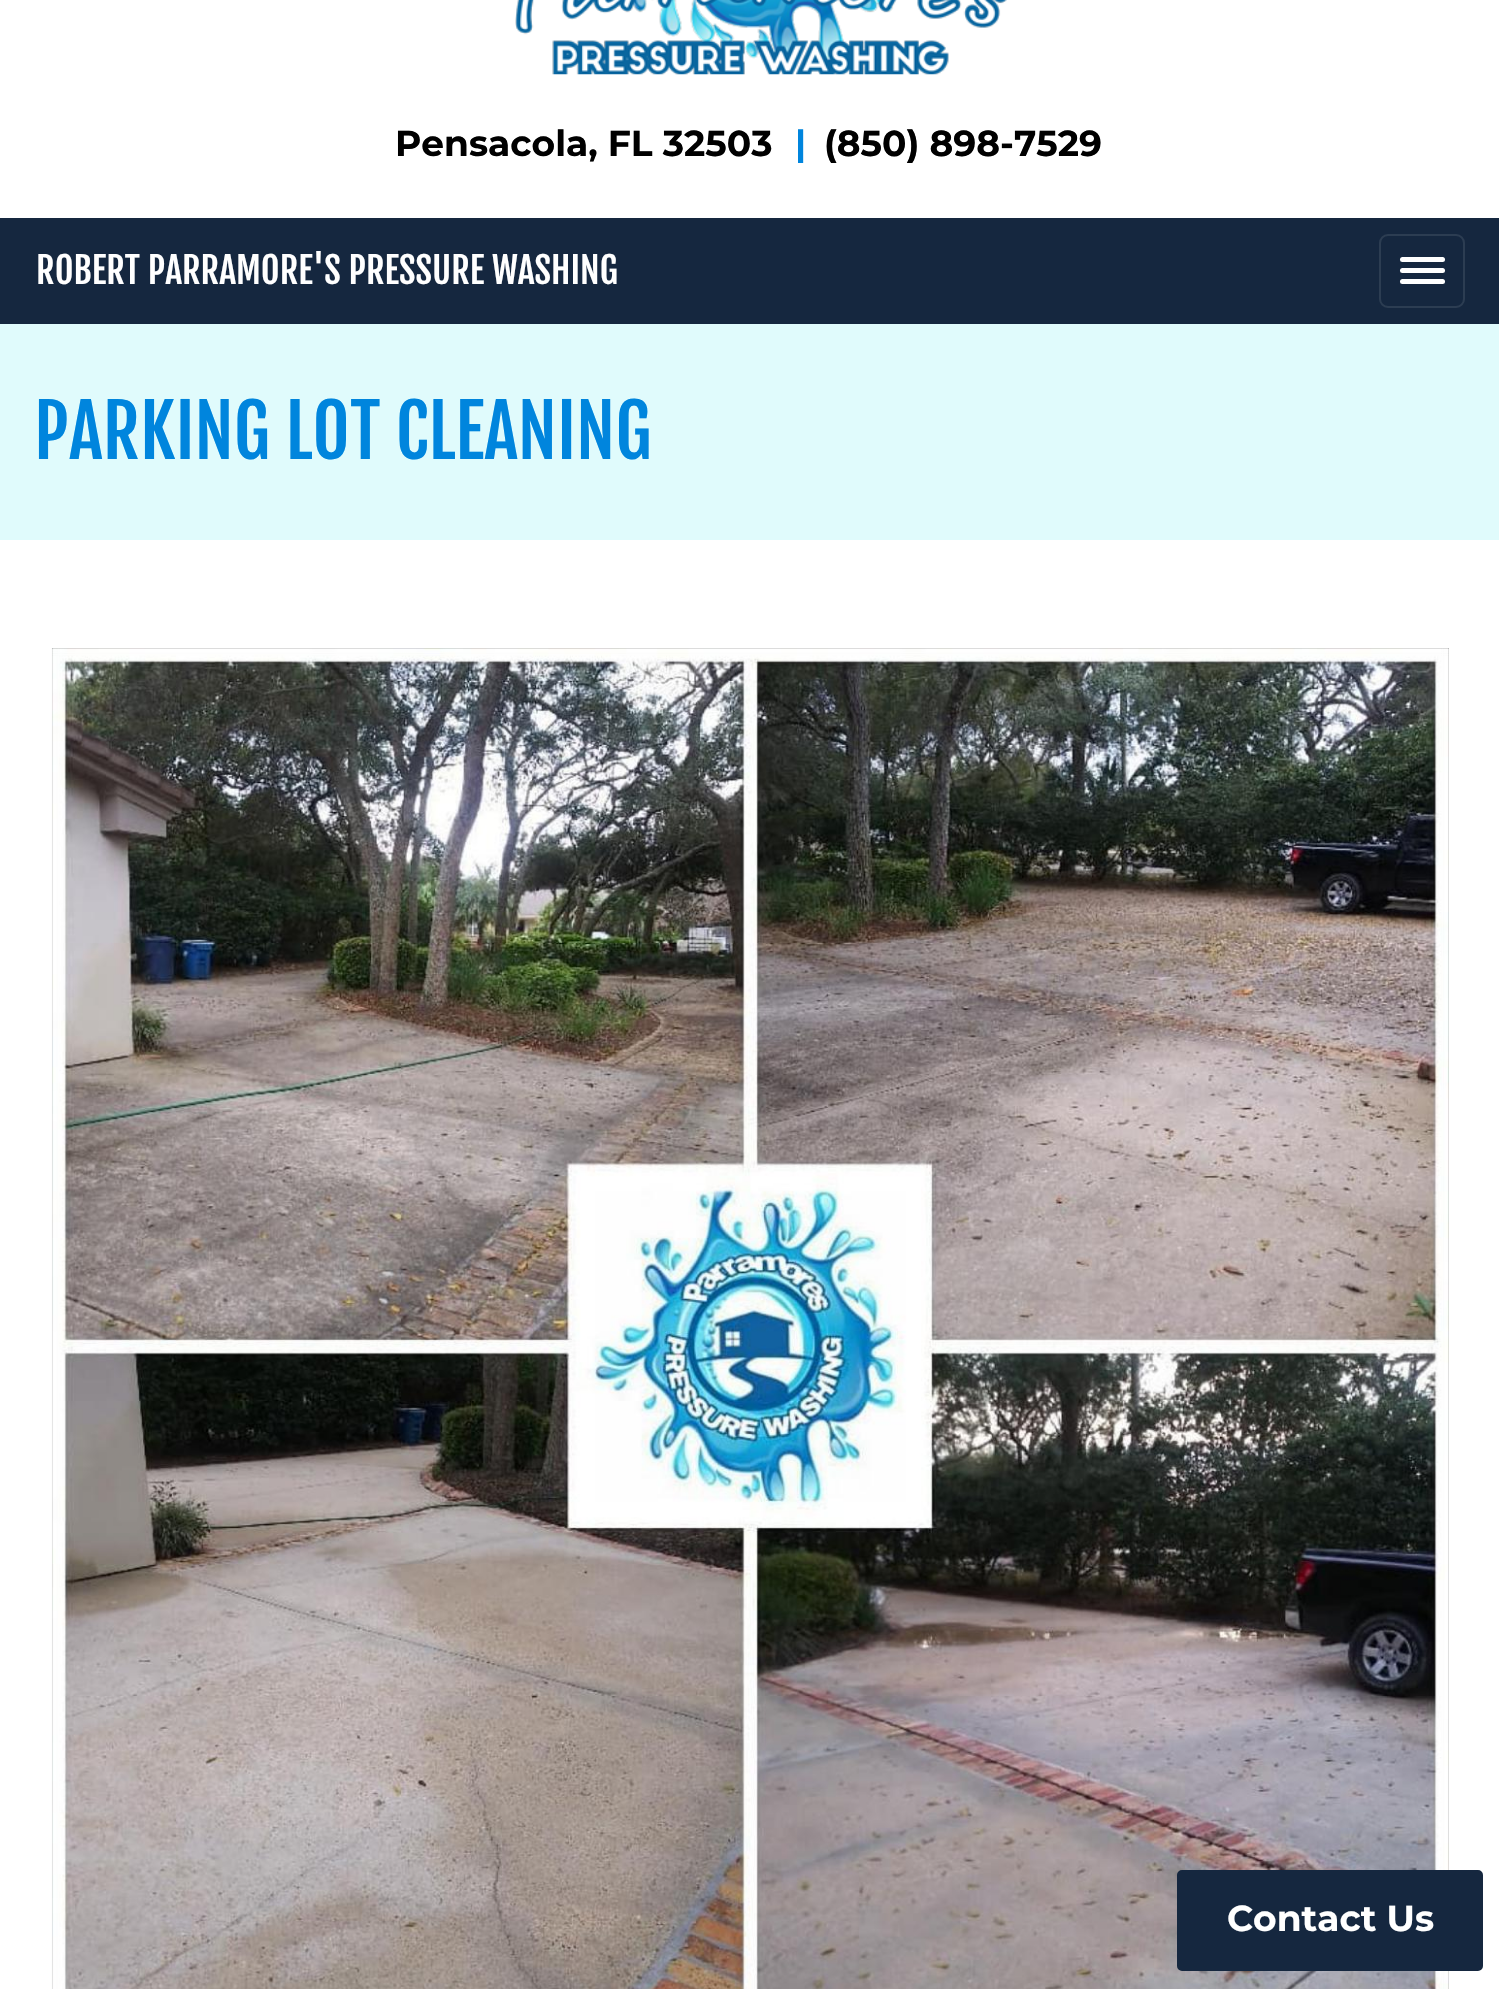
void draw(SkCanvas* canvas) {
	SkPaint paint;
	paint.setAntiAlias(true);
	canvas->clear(0xffffffff);
	canvas->drawImageRect(SkImages::DeferredFromEncodedData(SkData::MakeFromFileName("img1.png")), SkRect::MakeXYWH(515, 0, 492, 75), SkSamplingOptions());
	SkFont f1(fontMgr->matchFamilyStyle("Montserrat", SkFontStyle::Bold()), 36);
	f1.setSubpixel(true);
	paint.setColor(0xff000000);
	canvas->drawString("Pensacola, FL 32503", 395, 156, f1, paint);
	paint.setColor(0xff0085dd);
	canvas->drawString("|", 795, 156, f1, paint);
	paint.setColor(0xff000000);
	canvas->drawString("(850) 898-7529", 824, 156, f1, paint);
	paint.setColor(0xff15273f);
	canvas->drawRect(SkRect::MakeXYWH(0, 218, 1499, 106), paint);
	SkFont f2(fontMgr->matchFamilyStyle("Fjalla One", SkFontStyle::Normal()), 36);
	f2.setSubpixel(true);
	paint.setColor(0xffffffff);
	canvas->drawString("ROBERT PARRAMORE'S PRESSURE WASHING", 36, 284, f2, paint);
	paint.setStroke(true);
	paint.setStrokeWidth(2);
	paint.setColor(0xff2c3d52);
	canvas->drawRoundRect(SkRect::MakeXYWH(1380, 235, 84, 72), 8, 8, paint);
	paint.setStroke(false);
	paint.setColor(0xffffffff);
	canvas->drawRoundRect(SkRect::MakeXYWH(1400, 257, 45, 5), 2.5, 2.5, paint);
	canvas->drawRoundRect(SkRect::MakeXYWH(1400, 268, 45, 5), 2.5, 2.5, paint);
	canvas->drawRoundRect(SkRect::MakeXYWH(1400, 279, 45, 5), 2.5, 2.5, paint);
	paint.setColor(0xffe0fbfc);
	canvas->drawRect(SkRect::MakeXYWH(0, 324, 1499, 216), paint);
	SkFont f3(fontMgr->matchFamilyStyle("Fjalla One", SkFontStyle::Normal()), 72);
	f3.setSubpixel(true);
	paint.setColor(0xff0085dd);
	canvas->drawString("PARKING LOT CLEANING", 34, 459, f3, paint);
	canvas->drawImageRect(SkImages::DeferredFromEncodedData(SkData::MakeFromFileName("img2.png")), SkRect::MakeXYWH(51, 648, 1398, 1341), SkSamplingOptions());
	paint.setColor(0xff15273f);
	canvas->drawRoundRect(SkRect::MakeXYWH(1178, 1871, 304, 99), 4, 4, paint);
	paint.setStroke(true);
	canvas->drawRoundRect(SkRect::MakeXYWH(1178, 1871, 304, 99), 4, 4, paint);
	paint.setStroke(false);
	paint.setColor(0xffffffff);
	canvas->drawString("Contact Us", 1227, 1931, f1, paint);
}
